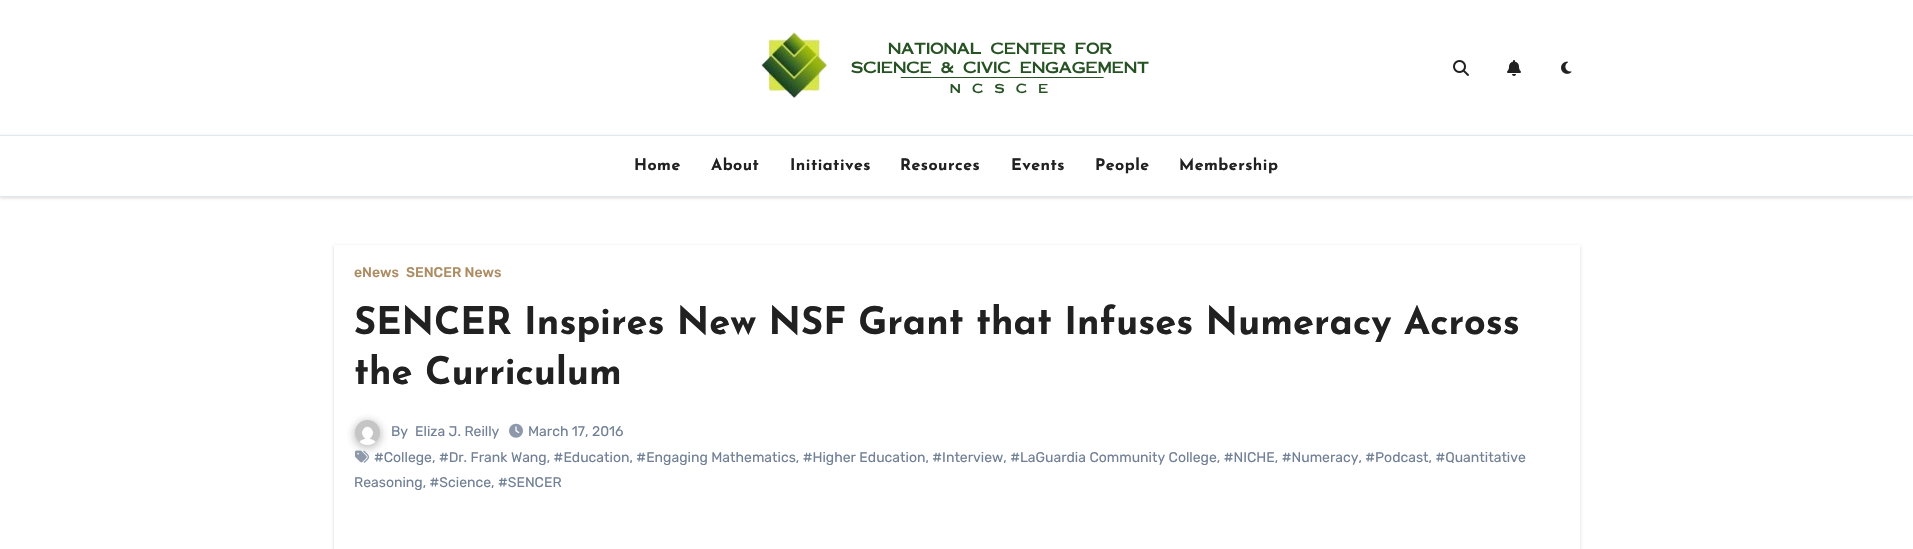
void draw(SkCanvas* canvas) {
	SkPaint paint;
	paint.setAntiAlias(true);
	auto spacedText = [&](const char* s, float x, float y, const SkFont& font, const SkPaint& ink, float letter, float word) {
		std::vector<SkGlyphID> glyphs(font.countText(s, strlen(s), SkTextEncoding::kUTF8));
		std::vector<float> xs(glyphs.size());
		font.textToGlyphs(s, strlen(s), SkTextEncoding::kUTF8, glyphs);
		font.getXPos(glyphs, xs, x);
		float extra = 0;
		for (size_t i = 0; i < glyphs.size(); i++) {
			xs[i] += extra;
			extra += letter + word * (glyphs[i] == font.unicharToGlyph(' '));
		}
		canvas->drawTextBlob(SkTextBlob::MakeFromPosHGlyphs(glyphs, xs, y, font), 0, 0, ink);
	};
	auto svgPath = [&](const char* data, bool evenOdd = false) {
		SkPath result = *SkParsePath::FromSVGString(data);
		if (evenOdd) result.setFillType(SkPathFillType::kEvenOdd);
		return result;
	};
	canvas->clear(0xffffffff);
	canvas->drawImageRect(SkImages::DeferredFromEncodedData(SkData::MakeFromFileName("img1.png")), SkRect::MakeXYWH(761, 32, 388, 66), SkSamplingOptions());
	canvas->drawImageRect(SkImages::DeferredFromEncodedData(SkData::MakeFromFileName("img2.png")), SkRect::MakeXYWH(1453, 60, 16, 16), SkSamplingOptions());
	canvas->drawImageRect(SkImages::DeferredFromEncodedData(SkData::MakeFromFileName("img3.png")), SkRect::MakeXYWH(1507, 60, 14, 16), SkSamplingOptions());
	canvas->drawImageRect(SkImages::DeferredFromEncodedData(SkData::MakeFromFileName("img4.png")), SkRect::MakeXYWH(1561, 61, 11, 13), SkSamplingOptions());
	canvas->save();
	canvas->clipPath(svgPath("M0 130H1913V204H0ZM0 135H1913V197H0Z", true), true);
	paint.setColor(0x26000000);
	paint.setMaskFilter(SkMaskFilter::MakeBlur(kNormal_SkBlurStyle, 1.5));
	canvas->drawRect(SkRect::MakeXYWH(0, 136, 1913, 62), paint);
	paint.setMaskFilter(nullptr);
	canvas->restore();
	paint.setColor(0xffe2e8f0);
	canvas->drawRect(SkRect::MakeXYWH(0, 135, 1913, 1), paint);
	canvas->drawRect(SkRect::MakeXYWH(0, 196, 1913, 1), paint);
	SkFont f1(fontMgr->matchFamilyStyle("Josefin Sans", SkFontStyle::Bold()), 16);
	f1.setSubpixel(true);
	paint.setColor(0xff212121);
	spacedText("Home", 634, 170, f1, paint, 0.5, 0);
	spacedText("About", 711, 170, f1, paint, 0.5, 0);
	spacedText("Initiatives", 790, 170, f1, paint, 0.5, 0);
	spacedText("Resources", 900, 170, f1, paint, 0.5, 0);
	spacedText("Events", 1011, 170, f1, paint, 0.5, 0);
	spacedText("People", 1095, 170, f1, paint, 0.5, 0);
	spacedText("Membership", 1179, 170, f1, paint, 0.5, 0);
	canvas->save();
	canvas->clipPath(svgPath("M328 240H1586V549H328ZM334 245H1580V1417H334Z", true), true);
	paint.setColor(0x26000000);
	paint.setMaskFilter(SkMaskFilter::MakeBlur(kNormal_SkBlurStyle, 1.5));
	canvas->drawRect(SkRect::MakeXYWH(334, 246, 1246, 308), paint);
	paint.setMaskFilter(nullptr);
	canvas->restore();
	SkFont f2(fontMgr->matchFamilyStyle("Rubik", SkFontStyle(500, SkFontStyle::kNormal_Width, SkFontStyle::kUpright_Slant)), 14);
	f2.setSubpixel(true);
	paint.setColor(0xffad8c62);
	canvas->drawString("eNews", 354, 277, f2, paint);
	canvas->drawString("SENCER News", 406, 277, f2, paint);
	SkFont f3(fontMgr->matchFamilyStyle("Josefin Sans", SkFontStyle::Bold()), 38);
	f3.setSubpixel(true);
	paint.setColor(0xff212121);
	canvas->drawString("SENCER Inspires New NSF Grant that Infuses Numeracy Across", 354, 334, f3, paint);
	canvas->drawString("the Curriculum", 354, 384, f3, paint);
	paint.setColor(0x4d212121);
	paint.setMaskFilter(SkMaskFilter::MakeBlur(kNormal_SkBlurStyle, 4));
	canvas->drawRoundRect(SkRect::MakeXYWH(354, 421, 27, 27), 13.5, 13.5, paint);
	paint.setMaskFilter(nullptr);
	canvas->drawImageRect(SkImages::DeferredFromEncodedData(SkData::MakeFromFileName("img5.png")), SkRect::MakeXYWH(355, 420, 25, 25), SkSamplingOptions());
	SkFont f4(fontMgr->matchFamilyStyle("Rubik", SkFontStyle(300, SkFontStyle::kNormal_Width, SkFontStyle::kUpright_Slant)), 14);
	f4.setSubpixel(true);
	paint.setColor(0xff718096);
	canvas->drawString("By", 391, 436, f4, paint);
	canvas->drawString("Eliza J. Reilly", 415, 436, f4, paint);
	canvas->drawImageRect(SkImages::DeferredFromEncodedData(SkData::MakeFromFileName("img6.png")), SkRect::MakeXYWH(509, 423, 14, 15), SkSamplingOptions());
	canvas->drawString("March 17, 2016", 528, 436, f4, paint);
	canvas->drawImageRect(SkImages::DeferredFromEncodedData(SkData::MakeFromFileName("img7.png")), SkRect::MakeXYWH(355, 450, 14, 13), SkSamplingOptions());
	canvas->drawString("#College, #Dr. Frank Wang, #Education, #Engaging Mathematics, #Higher Education, #Interview, #LaGuardia Community College, #NICHE, #Numeracy, #Podcast, #Quantitative", 374, 462, f4, paint);
	canvas->drawString("Reasoning, #Science, #SENCER", 354, 487, f4, paint);
}
